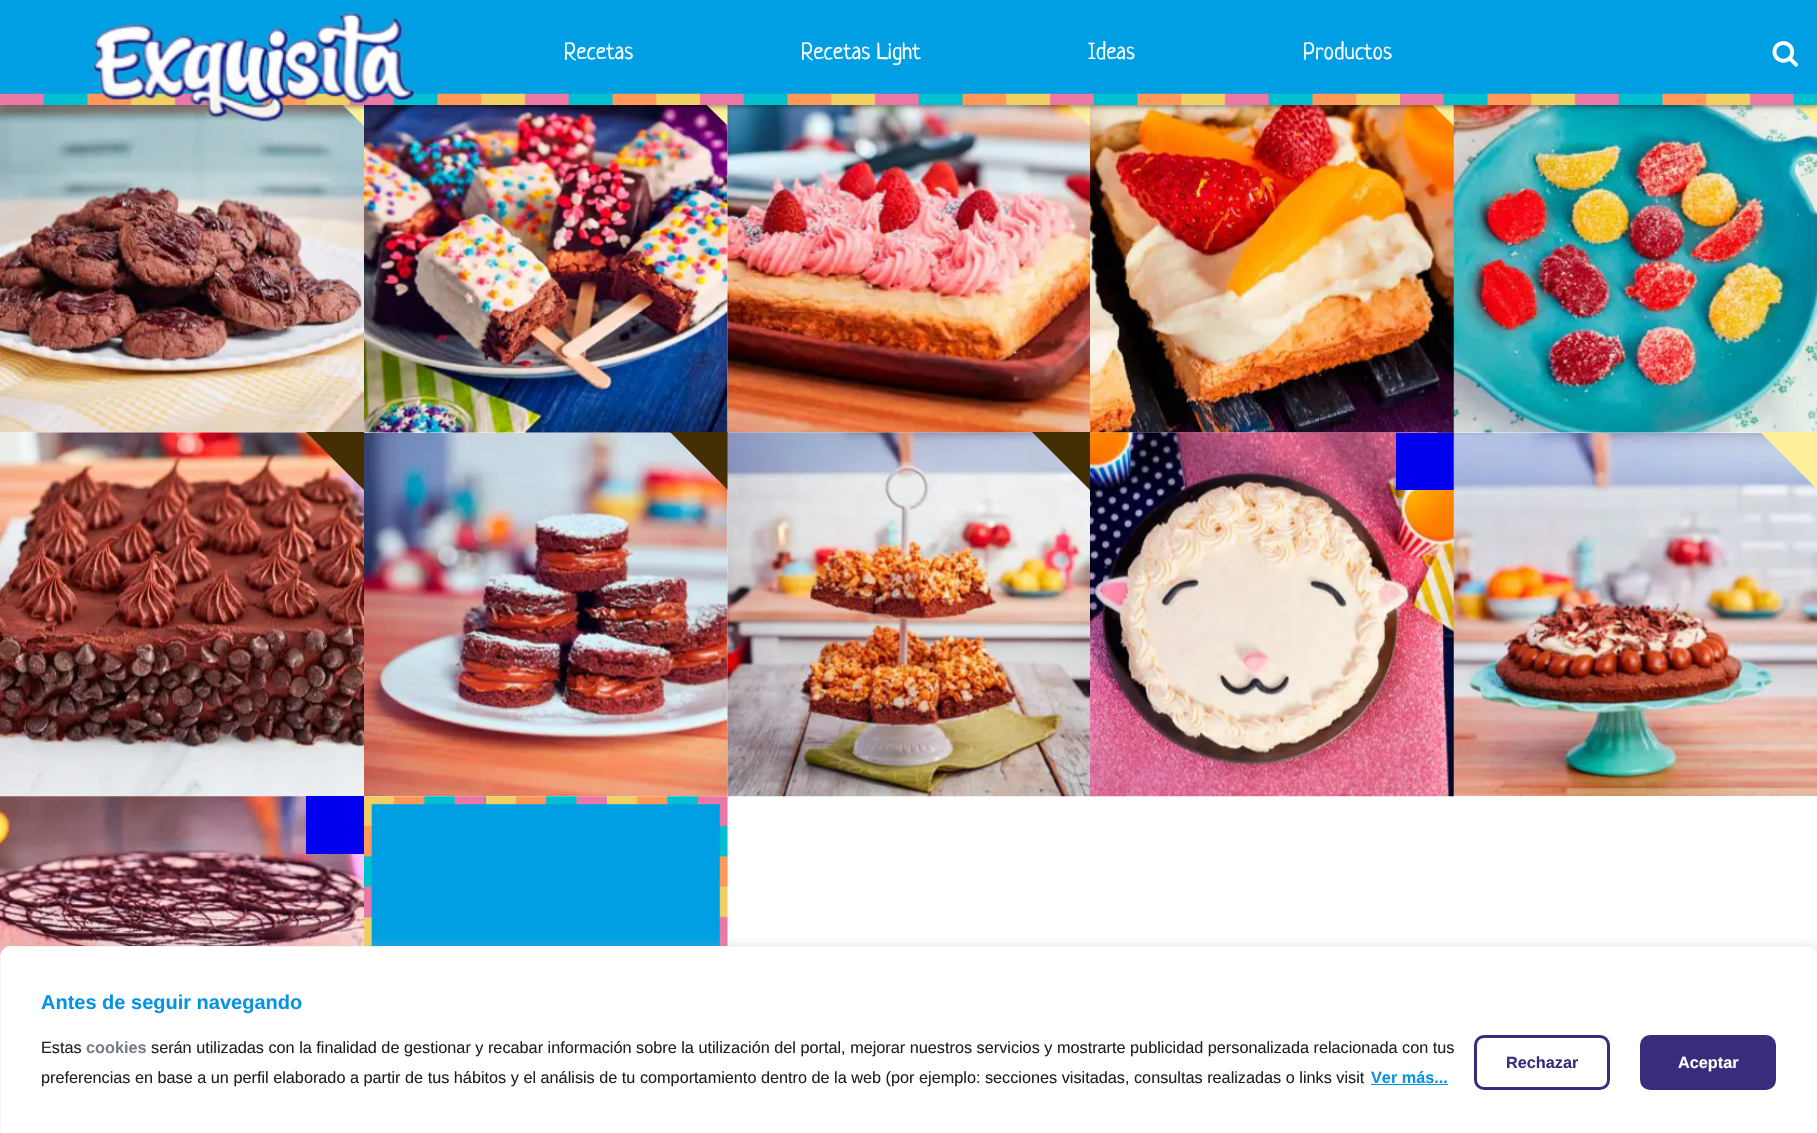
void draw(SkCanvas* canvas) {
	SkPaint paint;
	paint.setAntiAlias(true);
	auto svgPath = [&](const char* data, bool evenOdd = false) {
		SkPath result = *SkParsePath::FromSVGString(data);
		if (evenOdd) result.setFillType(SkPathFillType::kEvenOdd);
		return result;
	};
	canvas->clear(0xffffffff);
	canvas->drawImageRect(SkImages::DeferredFromEncodedData(SkData::MakeFromFileName("img4.png")), SkRect::MakeXYWH(0, 105, 364, 328), SkSamplingOptions());
	paint.setColor(0xfffff09c);
	canvas->drawPath(svgPath("M364 69V126L306 69Z"), paint);
	canvas->drawImageRect(SkImages::DeferredFromEncodedData(SkData::MakeFromFileName("img5.png")), SkRect::MakeXYWH(364, 105, 364, 328), SkSamplingOptions());
	canvas->drawPath(svgPath("M728 69V126L670 69Z"), paint);
	canvas->drawImageRect(SkImages::DeferredFromEncodedData(SkData::MakeFromFileName("img6.png")), SkRect::MakeXYWH(727, 105, 365, 328), SkSamplingOptions());
	canvas->drawPath(svgPath("M1090 69V126L1032 69Z"), paint);
	canvas->drawImageRect(SkImages::DeferredFromEncodedData(SkData::MakeFromFileName("img7.png")), SkRect::MakeXYWH(1090, 105, 364, 328), SkSamplingOptions());
	canvas->drawPath(svgPath("M1454 69V126L1396 69Z"), paint);
	canvas->drawImageRect(SkImages::DeferredFromEncodedData(SkData::MakeFromFileName("img8.png")), SkRect::MakeXYWH(1453, 105, 364, 328), SkSamplingOptions());
	canvas->drawPath(svgPath("M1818 69V126L1760 69Z"), paint);
	paint.setColor(0x80000000);
	paint.setMaskFilter(SkMaskFilter::MakeBlur(kNormal_SkBlurStyle, 3));
	canvas->drawRect(SkRect::MakeXYWH(0, 1, 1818, 105), paint);
	paint.setMaskFilter(nullptr);
	paint.setColor(0xff009fe3);
	canvas->drawRect(SkRect::MakeXYWH(0, 0, 1817, 94), paint);
	canvas->drawImageRect(SkImages::DeferredFromEncodedData(SkData::MakeFromFileName("img1.png")), SkRect::MakeXYWH(0, 93, 1817, 12), SkSamplingOptions());
	canvas->drawImageRect(SkImages::DeferredFromEncodedData(SkData::MakeFromFileName("img2.png")), SkRect::MakeXYWH(92, 11, 324, 112), SkSamplingOptions());
	SkFont f1(fontMgr->matchFamilyStyle("Neucha", SkFontStyle::Normal()), 23.5);
	f1.setSubpixel(true);
	paint.setColor(0xffffffff);
	canvas->drawString("Recetas", 564, 59, f1, paint);
	canvas->drawString("Recetas Light", 801, 59, f1, paint);
	canvas->drawString("Ideas", 1088, 59, f1, paint);
	canvas->drawString("Productos", 1303, 59, f1, paint);
	canvas->drawImageRect(SkImages::DeferredFromEncodedData(SkData::MakeFromFileName("img3.png")), SkRect::MakeXYWH(1772, 41, 27, 26), SkSamplingOptions());
	canvas->drawImageRect(SkImages::DeferredFromEncodedData(SkData::MakeFromFileName("img9.png")), SkRect::MakeXYWH(0, 432, 364, 364), SkSamplingOptions());
	paint.setColor(0xff442f04);
	canvas->drawPath(svgPath("M364 432V490L306 432Z"), paint);
	canvas->drawImageRect(SkImages::DeferredFromEncodedData(SkData::MakeFromFileName("img10.png")), SkRect::MakeXYWH(364, 433, 364, 363), SkSamplingOptions());
	canvas->drawPath(svgPath("M728 432V490L670 432Z"), paint);
	canvas->drawImageRect(SkImages::DeferredFromEncodedData(SkData::MakeFromFileName("img11.png")), SkRect::MakeXYWH(727, 432, 365, 365), SkSamplingOptions());
	canvas->drawPath(svgPath("M1090 432V490L1032 432Z"), paint);
	canvas->drawImageRect(SkImages::DeferredFromEncodedData(SkData::MakeFromFileName("img12.png")), SkRect::MakeXYWH(1090, 432, 364, 365), SkSamplingOptions());
	paint.setColor(0xff0000ee);
	canvas->drawRect(SkRect::MakeXYWH(1396, 433, 58, 57), paint);
	canvas->drawImageRect(SkImages::DeferredFromEncodedData(SkData::MakeFromFileName("img13.png")), SkRect::MakeXYWH(1453, 433, 364, 363), SkSamplingOptions());
	paint.setColor(0xfffff09c);
	canvas->drawPath(svgPath("M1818 432V490L1760 432Z"), paint);
	canvas->drawImageRect(SkImages::DeferredFromEncodedData(SkData::MakeFromFileName("img14.png")), SkRect::MakeXYWH(0, 796, 364, 160), SkSamplingOptions());
	paint.setColor(0xff0000ee);
	canvas->drawRect(SkRect::MakeXYWH(306, 796, 58, 58), paint);
	canvas->drawImageRect(SkImages::DeferredFromEncodedData(SkData::MakeFromFileName("img15.png")), SkRect::MakeXYWH(364, 796, 364, 150), SkSamplingOptions());
	paint.setColor(0x4dacabab);
	paint.setMaskFilter(SkMaskFilter::MakeBlur(kNormal_SkBlurStyle, 6));
	canvas->drawRoundRect(SkRect::MakeXYWH(0, 945, 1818, 188), 10, 10, paint);
	paint.setMaskFilter(nullptr);
	paint.setColor(0xffffffff);
	canvas->drawPath(svgPath("M10 946.5H1808C1813 946.5 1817.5 951 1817.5 956V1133.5H.5V956C.5 951 5 946.5 10 946.5Z"), paint);
	paint.setStroke(true);
	paint.setStrokeWidth(1);
	paint.setColor(0xfff4f4f4);
	canvas->drawPath(svgPath("M10 946.5H1808C1813 946.5 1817.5 951 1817.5 956V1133.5H.5V956C.5 951 5 946.5 10 946.5Z"), paint);
	SkFont f2(fontMgr->matchFamilyStyle("Liberation Sans", SkFontStyle::Bold()), 20);
	f2.setSubpixel(true);
	paint.setStroke(false);
	paint.setColor(0xff0693e3);
	canvas->drawString("Antes de seguir navegando", 41, 1009, f2, paint);
	SkFont f3(fontMgr->matchFamilyStyle("Liberation Sans", SkFontStyle::Normal()), 16.25);
	f3.setSubpixel(true);
	paint.setColor(0xff212121);
	canvas->drawString("Estas", 41, 1053, f3, paint);
	SkFont f4(fontMgr->matchFamilyStyle("Liberation Sans", SkFontStyle::Bold()), 16.25);
	f4.setSubpixel(true);
	paint.setColor(0xff767d85);
	canvas->drawString("cookies", 86, 1053, f4, paint);
	paint.setColor(0xff212121);
	canvas->drawString("serán utilizadas con la finalidad de gestionar y recabar información sobre la utilización del portal, mejorar nuestros servicios y mostrarte publicidad personalizada relacionada con tus", 151, 1053, f3, paint);
	canvas->drawString("preferencias en base a un perfil elaborado a partir de tus hábitos y el análisis de tu comportamiento dentro de la web (por ejemplo: secciones visitadas, consultas realizadas o links visit", 41, 1083, f3, paint);
	paint.setColor(0xffffffff);
	canvas->drawRect(SkRect::MakeXYWH(1364, 1074, 1, 9), paint);
	paint.setColor(0xff0693e3);
	canvas->drawString("Ver más...", 1371, 1083, f4, paint);
	canvas->drawRect(SkRect::MakeXYWH(1371, 1084, 77, 1), paint);
	paint.setStroke(true);
	paint.setStrokeWidth(3);
	paint.setColor(0xff382d7c);
	canvas->drawRoundRect(SkRect::MakeXYWH(1475.5, 1036.5, 133, 52), 8.5, 8.5, paint);
	paint.setStroke(false);
	canvas->drawString("Rechazar", 1506, 1068, f4, paint);
	canvas->drawRoundRect(SkRect::MakeXYWH(1641.5, 1036.5, 133, 52), 8.5, 8.5, paint);
	paint.setStroke(true);
	canvas->drawRoundRect(SkRect::MakeXYWH(1641.5, 1036.5, 133, 52), 8.5, 8.5, paint);
	paint.setStroke(false);
	paint.setColor(0xffffffff);
	canvas->drawString("Aceptar", 1678, 1068, f4, paint);
}
